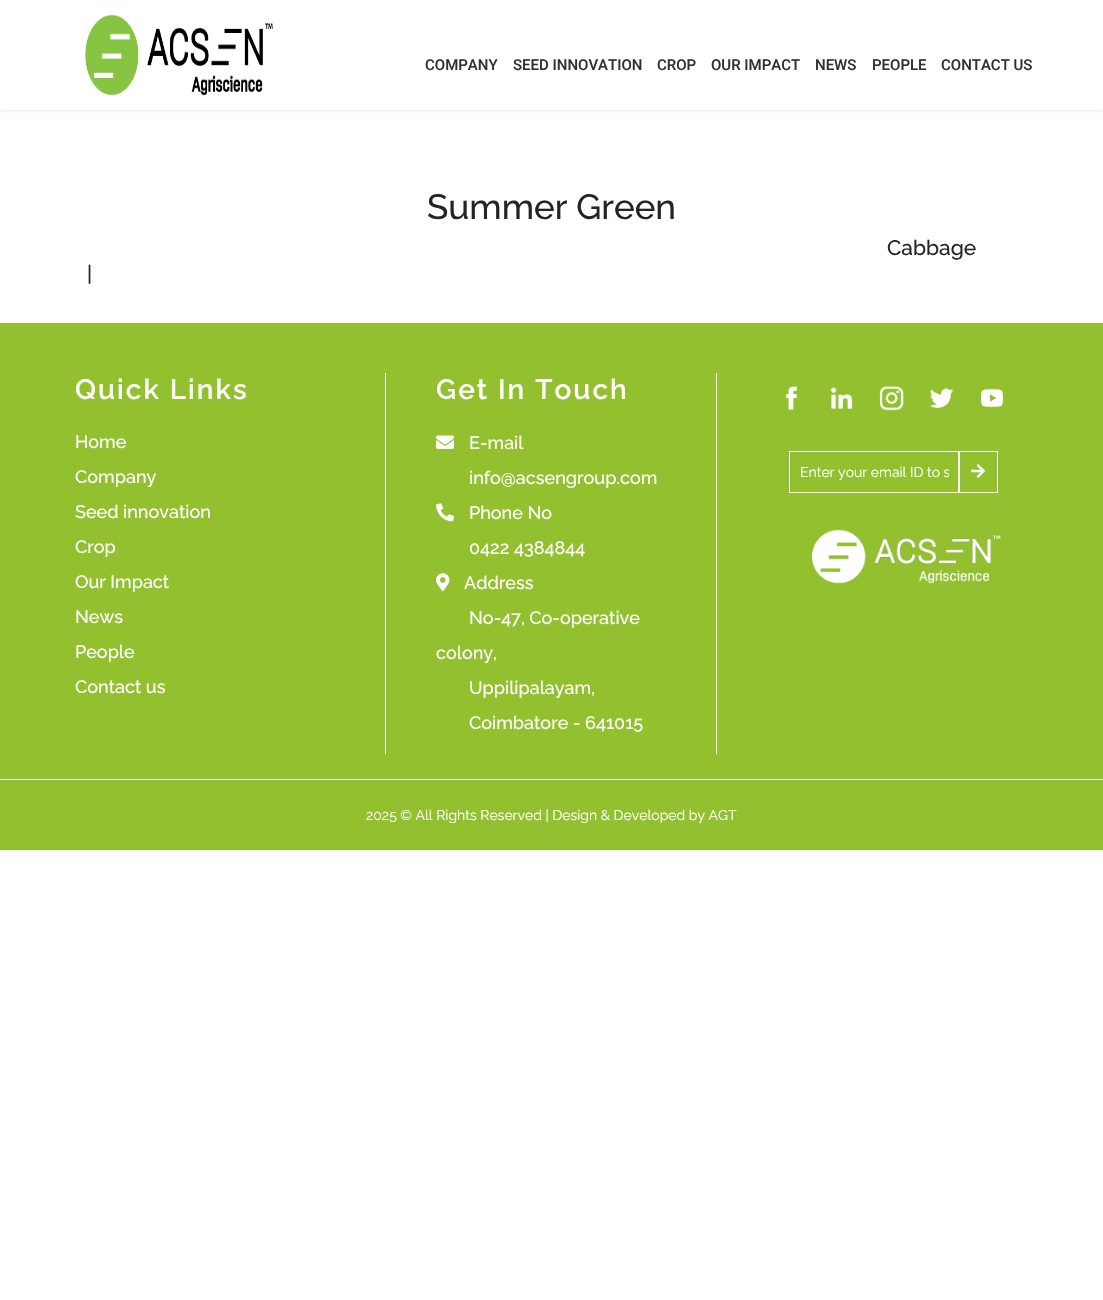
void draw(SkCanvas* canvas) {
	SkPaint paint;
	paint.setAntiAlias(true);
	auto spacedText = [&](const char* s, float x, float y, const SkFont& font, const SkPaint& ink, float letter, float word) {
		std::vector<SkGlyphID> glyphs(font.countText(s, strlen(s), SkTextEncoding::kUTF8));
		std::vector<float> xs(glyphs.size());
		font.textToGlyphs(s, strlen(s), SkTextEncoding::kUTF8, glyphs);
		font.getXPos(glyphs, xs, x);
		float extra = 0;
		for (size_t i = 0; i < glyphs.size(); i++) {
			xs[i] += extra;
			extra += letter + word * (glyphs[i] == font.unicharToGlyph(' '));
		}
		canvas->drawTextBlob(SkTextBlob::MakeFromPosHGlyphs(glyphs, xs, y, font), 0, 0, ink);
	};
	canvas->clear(0xffffffff);
	canvas->save();
	canvas->clipRect(SkRect::MakeXYWH(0, 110, 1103, 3));
	paint.setColor(0x33888888);
	paint.setMaskFilter(SkMaskFilter::MakeBlur(kNormal_SkBlurStyle, 1.5));
	canvas->drawRect(SkRect::MakeXYWH(0, 1, 1103, 110), paint);
	paint.setMaskFilter(nullptr);
	canvas->restore();
	canvas->drawImageRect(SkImages::DeferredFromEncodedData(SkData::MakeFromFileName("img1.png")), SkRect::MakeXYWH(85, 14, 188, 82), SkSamplingOptions());
	SkFont f1(fontMgr->matchFamilyStyle("Roboto", SkFontStyle(500, SkFontStyle::kNormal_Width, SkFontStyle::kUpright_Slant)), 15);
	f1.setSubpixel(true);
	paint.setColor(0xff2f3030);
	canvas->drawString("COMPANY", 425, 70, f1, paint);
	canvas->drawString("SEED INNOVATION", 513, 70, f1, paint);
	canvas->drawString("CROP", 657, 70, f1, paint);
	canvas->drawString("OUR IMPACT", 711, 70, f1, paint);
	canvas->drawString("NEWS", 815, 70, f1, paint);
	canvas->drawString("PEOPLE", 872, 70, f1, paint);
	canvas->drawString("CONTACT US", 941, 70, f1, paint);
	SkFont f2(fontMgr->matchFamilyStyle("Raleway", SkFontStyle(500, SkFontStyle::kNormal_Width, SkFontStyle::kUpright_Slant)), 35);
	f2.setSubpixel(true);
	paint.setColor(0xff212529);
	canvas->drawString("Summer Green", 427, 219, f2, paint);
	SkFont f3(fontMgr->matchFamilyStyle("Raleway", SkFontStyle(500, SkFontStyle::kNormal_Width, SkFontStyle::kUpright_Slant)), 21);
	f3.setSubpixel(true);
	canvas->drawString("Cabbage", 887, 255, f3, paint);
	canvas->drawString("|", 87, 281, f3, paint);
	paint.setColor(0xff92c02f);
	canvas->drawRect(SkRect::MakeXYWH(0, 323, 1103, 527), paint);
	paint.setColor(0xffffffff);
	canvas->drawRect(SkRect::MakeXYWH(385, 373, 1, 381), paint);
	SkFont f4(fontMgr->matchFamilyStyle("Raleway", SkFontStyle(600, SkFontStyle::kNormal_Width, SkFontStyle::kUpright_Slant)), 28);
	f4.setSubpixel(true);
	spacedText("Quick Links", 75, 399, f4, paint, 2, 0);
	SkFont f5(fontMgr->matchFamilyStyle("Raleway", SkFontStyle(500, SkFontStyle::kNormal_Width, SkFontStyle::kUpright_Slant)), 18);
	f5.setSubpixel(true);
	canvas->drawString("Home", 75, 448, f5, paint);
	canvas->drawString("Company", 75, 483, f5, paint);
	canvas->drawString("Seed innovation", 75, 518, f5, paint);
	canvas->drawString("Crop", 75, 553, f5, paint);
	canvas->drawString("Our Impact", 75, 588, f5, paint);
	canvas->drawString("News", 75, 623, f5, paint);
	canvas->drawString("People", 75, 658, f5, paint);
	canvas->drawString("Contact us", 75, 693, f5, paint);
	canvas->drawRect(SkRect::MakeXYWH(716, 373, 1, 381), paint);
	spacedText("Get In Touch", 436, 399, f4, paint, 2, 0);
	canvas->drawImageRect(SkImages::DeferredFromEncodedData(SkData::MakeFromFileName("img2.png")), SkRect::MakeXYWH(436, 435, 18, 14), SkSamplingOptions());
	canvas->drawString("E-mail", 469, 449, f5, paint);
	canvas->drawString("info@acsengroup.com", 469, 484, f5, paint);
	canvas->drawImageRect(SkImages::DeferredFromEncodedData(SkData::MakeFromFileName("img3.png")), SkRect::MakeXYWH(436, 503, 19, 19), SkSamplingOptions());
	canvas->drawString("Phone No", 469, 519, f5, paint);
	canvas->drawString("0422 4384844", 469, 554, f5, paint);
	canvas->drawImageRect(SkImages::DeferredFromEncodedData(SkData::MakeFromFileName("img4.png")), SkRect::MakeXYWH(436, 573, 14, 19), SkSamplingOptions());
	canvas->drawString("Address", 464, 589, f5, paint);
	canvas->drawString("No-47, Co-operative", 469, 624, f5, paint);
	canvas->drawString("colony,", 436, 659, f5, paint);
	canvas->drawString("Uppilipalayam,", 469, 694, f5, paint);
	canvas->drawString("Coimbatore - 641015", 469, 729, f5, paint);
	canvas->drawImageRect(SkImages::DeferredFromEncodedData(SkData::MakeFromFileName("img5.png")), SkRect::MakeXYWH(785, 386, 12, 25), SkSamplingOptions());
	canvas->drawImageRect(SkImages::DeferredFromEncodedData(SkData::MakeFromFileName("img6.png")), SkRect::MakeXYWH(830, 387, 23, 22), SkSamplingOptions());
	canvas->drawImageRect(SkImages::DeferredFromEncodedData(SkData::MakeFromFileName("img7.png")), SkRect::MakeXYWH(879, 386, 25, 25), SkSamplingOptions());
	canvas->drawImageRect(SkImages::DeferredFromEncodedData(SkData::MakeFromFileName("img8.png")), SkRect::MakeXYWH(930, 388, 24, 20), SkSamplingOptions());
	canvas->drawImageRect(SkImages::DeferredFromEncodedData(SkData::MakeFromFileName("img9.png")), SkRect::MakeXYWH(981, 389, 22, 18), SkSamplingOptions());
	paint.setStroke(true);
	paint.setStrokeWidth(1);
	canvas->drawRect(SkRect::MakeXYWH(789.5, 451.5, 170, 41), paint);
	canvas->save();
	canvas->clipRect(SkRect::MakeXYWH(800, 464, 149, 16));
	SkFont f6(fontMgr->matchFamilyStyle("Raleway", SkFontStyle::Normal()), 14);
	f6.setSubpixel(true);
	paint.setStroke(false);
	canvas->drawString("Enter your email ID to s", 800, 477, f6, paint);
	canvas->restore();
	paint.setStroke(true);
	canvas->drawRect(SkRect::MakeXYWH(958.5, 451.5, 39, 41), paint);
	canvas->drawImageRect(SkImages::DeferredFromEncodedData(SkData::MakeFromFileName("img10.png")), SkRect::MakeXYWH(971, 464, 14, 14), SkSamplingOptions());
	canvas->drawImageRect(SkImages::DeferredFromEncodedData(SkData::MakeFromFileName("img11.png")), SkRect::MakeXYWH(812, 529, 189, 55), SkSamplingOptions());
	paint.setStroke(false);
	canvas->drawRect(SkRect::MakeXYWH(0, 779, 1103, 1), paint);
	canvas->drawString("2025 © All Rights Reserved | Design & Developed by AGT", 366, 820, f6, paint);
}
